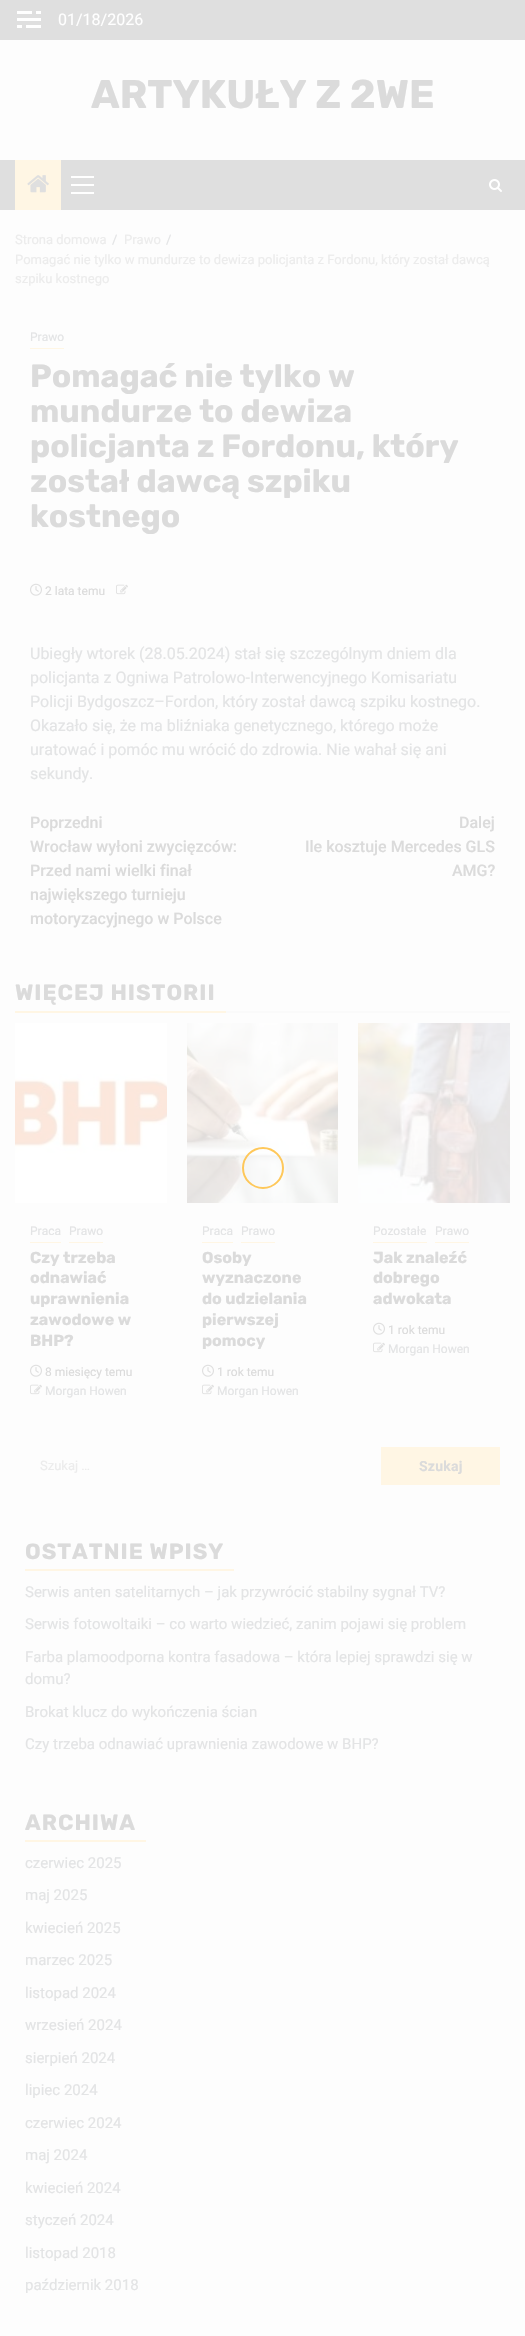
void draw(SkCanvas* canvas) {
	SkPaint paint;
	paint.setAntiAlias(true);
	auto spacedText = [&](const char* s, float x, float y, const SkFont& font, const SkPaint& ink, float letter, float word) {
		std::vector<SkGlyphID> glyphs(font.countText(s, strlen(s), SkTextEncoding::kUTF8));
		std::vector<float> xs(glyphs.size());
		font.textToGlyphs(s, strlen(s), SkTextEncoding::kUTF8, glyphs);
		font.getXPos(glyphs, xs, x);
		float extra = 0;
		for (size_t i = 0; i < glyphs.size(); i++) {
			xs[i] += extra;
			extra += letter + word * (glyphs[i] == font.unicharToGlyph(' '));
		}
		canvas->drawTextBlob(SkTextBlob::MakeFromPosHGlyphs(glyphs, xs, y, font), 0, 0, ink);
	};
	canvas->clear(0xfffdfdfd);
	paint.setColor(0xffdfdfdf);
	canvas->drawRect(SkRect::MakeXYWH(0, 0, 525, 40), paint);
	paint.setColor(0xffffffff);
	canvas->drawRect(SkRect::MakeXYWH(36, 11, 5, 3), paint);
	canvas->drawRect(SkRect::MakeXYWH(17, 11, 15, 3), paint);
	canvas->drawRect(SkRect::MakeXYWH(17, 18, 24, 3), paint);
	canvas->drawRect(SkRect::MakeXYWH(26, 25, 15, 3), paint);
	canvas->drawRect(SkRect::MakeXYWH(17, 25, 5, 3), paint);
	SkFont f1(fontMgr->matchFamilyStyle("Roboto", SkFontStyle::Normal()), 16);
	f1.setSubpixel(true);
	canvas->drawString("01/18/2026", 58, 25, f1, paint);
	SkFont f2(fontMgr->matchFamilyStyle("Rubik", SkFontStyle::Bold()), 40);
	f2.setSubpixel(true);
	paint.setColor(0xffdbdbdb);
	canvas->drawString("ARTYKUŁY Z 2WE", 91, 108, f2, paint);
	paint.setColor(0xffdfdfdf);
	canvas->drawRect(SkRect::MakeXYWH(0, 160, 525, 50), paint);
	paint.setColor(0xfffff6e4);
	canvas->drawRect(SkRect::MakeXYWH(15, 160, 46, 50), paint);
	canvas->drawImageRect(SkImages::DeferredFromEncodedData(SkData::MakeFromFileName("img1.png")), SkRect::MakeXYWH(27, 175, 22, 18), SkSamplingOptions());
	paint.setColor(0xffffffff);
	canvas->drawRect(SkRect::MakeXYWH(71, 184, 23, 2), paint);
	canvas->drawRect(SkRect::MakeXYWH(71, 176, 23, 2), paint);
	canvas->drawRect(SkRect::MakeXYWH(71, 192, 23, 2), paint);
	canvas->drawImageRect(SkImages::DeferredFromEncodedData(SkData::MakeFromFileName("img2.png")), SkRect::MakeXYWH(489, 179, 13, 13), SkSamplingOptions());
	SkFont f3(fontMgr->matchFamilyStyle("Roboto", SkFontStyle::Normal()), 13);
	f3.setSubpixel(true);
	paint.setColor(0xffececec);
	canvas->drawString("Strona domowa", 15, 244, f3, paint);
	paint.setColor(0xffe3e4e5);
	canvas->drawString("/", 112, 244, f3, paint);
	paint.setColor(0xffececec);
	canvas->drawString("Prawo", 124, 244, f3, paint);
	paint.setColor(0xffe3e4e5);
	canvas->drawString("/", 166, 244, f3, paint);
	paint.setColor(0xffececec);
	canvas->drawString("Pomagać nie tylko w mundurze to dewiza policjanta z Fordonu, który został dawcą", 15, 264, f3, paint);
	canvas->drawString("szpiku kostnego", 15, 283, f3, paint);
	paint.setColor(0xfffff6e4);
	canvas->drawRect(SkRect::MakeXYWH(30, 348, 34, 1), paint);
	SkFont f4(fontMgr->matchFamilyStyle("Roboto", SkFontStyle::Normal()), 12);
	f4.setSubpixel(true);
	paint.setColor(0xffe3e4e5);
	canvas->drawString("Prawo", 30, 341, f4, paint);
	SkFont f5(fontMgr->matchFamilyStyle("Rubik", SkFontStyle::Bold()), 32);
	f5.setSubpixel(true);
	paint.setColor(0xffdbdbdb);
	canvas->drawString("Pomagać nie tylko w", 30, 387, f5, paint);
	canvas->drawString("mundurze to dewiza", 30, 422, f5, paint);
	canvas->drawString("policjanta z Fordonu, który", 30, 457, f5, paint);
	canvas->drawString("został dawcą szpiku", 30, 492, f5, paint);
	canvas->drawString("kostnego", 30, 527, f5, paint);
	canvas->drawImageRect(SkImages::DeferredFromEncodedData(SkData::MakeFromFileName("img3.png")), SkRect::MakeXYWH(30, 583, 12, 13), SkSamplingOptions());
	canvas->drawString("2 lata temu", 45, 595, f4, paint);
	canvas->drawImageRect(SkImages::DeferredFromEncodedData(SkData::MakeFromFileName("img4.png")), SkRect::MakeXYWH(116, 584, 12, 11), SkSamplingOptions());
	paint.setColor(0xffe3e4e5);
	canvas->drawString("Ubiegły wtorek (28.05.2024) stał się szczególnym dniem dla", 30, 659, f1, paint);
	canvas->drawString("policjanta z Ogniwa Patrolowo-Interwencyjnego Komisariatu", 30, 683, f1, paint);
	canvas->drawString("Policji Bydgoszcz–Fordon, który został dawcą szpiku kostnego.", 30, 707, f1, paint);
	canvas->drawString("Okazało się, że ma bliźniaka genetycznego, którego może", 30, 731, f1, paint);
	canvas->drawString("uratować i pomóc mu wrócić do zdrowia. Nie wahał się ani", 30, 755, f1, paint);
	canvas->drawString("sekundy.", 30, 779, f1, paint);
	SkFont f6(fontMgr->matchFamilyStyle("Roboto", SkFontStyle(500, SkFontStyle::kNormal_Width, SkFontStyle::kUpright_Slant)), 16);
	f6.setSubpixel(true);
	paint.setColor(0xffdbdbdb);
	canvas->drawString("Poprzedni", 30, 828, f6, paint);
	canvas->drawString("Wrocław wyłoni zwycięzców:", 30, 852, f6, paint);
	canvas->drawString("Przed nami wielki finał", 30, 876, f6, paint);
	canvas->drawString("największego turnieju", 30, 900, f6, paint);
	canvas->drawString("motoryzacyjnego w Polsce", 30, 924, f6, paint);
	canvas->drawString("Dalej", 459, 828, f6, paint);
	canvas->drawString("Ile kosztuje Mercedes GLS", 305, 852, f6, paint);
	canvas->drawString("AMG?", 452, 876, f6, paint);
	paint.setColor(0xfffff6e4);
	canvas->drawRect(SkRect::MakeXYWH(15, 1011, 211, 2), paint);
	SkFont f7(fontMgr->matchFamilyStyle("Rubik", SkFontStyle::Bold()), 22);
	f7.setSubpixel(true);
	paint.setColor(0xffdbdbdb);
	spacedText("WIĘCEJ HISTORII", 15, 1000, f7, paint, 1, 0);
	paint.setColor(0xfffafafa);
	canvas->drawRect(SkRect::MakeXYWH(226, 1011, 284, 2), paint);
	canvas->drawImageRect(SkImages::DeferredFromEncodedData(SkData::MakeFromFileName("img5.png")), SkRect::MakeXYWH(15, 1023, 152, 180), SkSamplingOptions());
	paint.setColor(0xfffff6e4);
	canvas->drawRect(SkRect::MakeXYWH(30, 1242, 31, 1), paint);
	paint.setColor(0xffe3e4e5);
	canvas->drawString("Praca", 30, 1235, f4, paint);
	paint.setColor(0xfffff6e4);
	canvas->drawRect(SkRect::MakeXYWH(69, 1242, 34, 1), paint);
	paint.setColor(0xffe3e4e5);
	canvas->drawString("Prawo", 69, 1235, f4, paint);
	SkFont f8(fontMgr->matchFamilyStyle("Rubik", SkFontStyle::Bold()), 16);
	f8.setSubpixel(true);
	paint.setColor(0xffdbdbdb);
	canvas->drawString("Czy trzeba", 30, 1263, f8, paint);
	canvas->drawString("odnawiać", 30, 1283, f8, paint);
	canvas->drawString("uprawnienia", 30, 1304, f8, paint);
	canvas->drawString("zawodowe w", 30, 1325, f8, paint);
	canvas->drawString("BHP?", 30, 1346, f8, paint);
	canvas->drawImageRect(SkImages::DeferredFromEncodedData(SkData::MakeFromFileName("img3.png")), SkRect::MakeXYWH(30, 1364, 12, 13), SkSamplingOptions());
	canvas->drawString("8 miesięcy temu", 45, 1376, f4, paint);
	canvas->drawImageRect(SkImages::DeferredFromEncodedData(SkData::MakeFromFileName("img4.png")), SkRect::MakeXYWH(30, 1384, 12, 11), SkSamplingOptions());
	paint.setColor(0xffe3e4e5);
	canvas->drawString("Morgan Howen", 45, 1395, f4, paint);
	canvas->drawImageRect(SkImages::DeferredFromEncodedData(SkData::MakeFromFileName("img6.png")), SkRect::MakeXYWH(187, 1023, 151, 180), SkSamplingOptions());
	paint.setColor(0xfffff6e4);
	canvas->drawRect(SkRect::MakeXYWH(202, 1242, 31, 1), paint);
	paint.setColor(0xffe3e4e5);
	canvas->drawString("Praca", 202, 1235, f4, paint);
	paint.setColor(0xfffff6e4);
	canvas->drawRect(SkRect::MakeXYWH(241, 1242, 34, 1), paint);
	paint.setColor(0xffe3e4e5);
	canvas->drawString("Prawo", 241, 1235, f4, paint);
	paint.setColor(0xffdbdbdb);
	canvas->drawString("Osoby", 202, 1263, f8, paint);
	canvas->drawString("wyznaczone", 202, 1283, f8, paint);
	canvas->drawString("do udzielania", 202, 1304, f8, paint);
	canvas->drawString("pierwszej", 202, 1325, f8, paint);
	canvas->drawString("pomocy", 202, 1346, f8, paint);
	canvas->drawImageRect(SkImages::DeferredFromEncodedData(SkData::MakeFromFileName("img3.png")), SkRect::MakeXYWH(202, 1364, 12, 13), SkSamplingOptions());
	canvas->drawString("1 rok temu", 217, 1376, f4, paint);
	canvas->drawImageRect(SkImages::DeferredFromEncodedData(SkData::MakeFromFileName("img4.png")), SkRect::MakeXYWH(202, 1384, 12, 11), SkSamplingOptions());
	paint.setColor(0xffe3e4e5);
	canvas->drawString("Morgan Howen", 217, 1395, f4, paint);
	canvas->drawImageRect(SkImages::DeferredFromEncodedData(SkData::MakeFromFileName("img7.png")), SkRect::MakeXYWH(358, 1023, 152, 180), SkSamplingOptions());
	paint.setColor(0xfffff6e4);
	canvas->drawRect(SkRect::MakeXYWH(373, 1242, 54, 1), paint);
	paint.setColor(0xffe3e4e5);
	canvas->drawString("Pozostałe", 373, 1235, f4, paint);
	paint.setColor(0xfffff6e4);
	canvas->drawRect(SkRect::MakeXYWH(435, 1242, 34, 1), paint);
	paint.setColor(0xffe3e4e5);
	canvas->drawString("Prawo", 435, 1235, f4, paint);
	paint.setColor(0xffdbdbdb);
	canvas->drawString("Jak znaleźć", 373, 1263, f8, paint);
	canvas->drawString("dobrego", 373, 1283, f8, paint);
	canvas->drawString("adwokata", 373, 1304, f8, paint);
	canvas->drawImageRect(SkImages::DeferredFromEncodedData(SkData::MakeFromFileName("img3.png")), SkRect::MakeXYWH(373, 1322, 12, 13), SkSamplingOptions());
	canvas->drawString("1 rok temu", 388, 1334, f4, paint);
	canvas->drawImageRect(SkImages::DeferredFromEncodedData(SkData::MakeFromFileName("img4.png")), SkRect::MakeXYWH(373, 1342, 12, 11), SkSamplingOptions());
	paint.setColor(0xffe3e4e5);
	canvas->drawString("Morgan Howen", 388, 1353, f4, paint);
	paint.setColor(0xffececec);
	canvas->drawString("Szukaj …", 40, 1470, f3, paint);
	paint.setColor(0xfffff6e4);
	canvas->drawRect(SkRect::MakeXYWH(381, 1447, 119, 38), paint);
	SkFont f9(fontMgr->matchFamilyStyle("Roboto", SkFontStyle::Bold()), 14);
	f9.setSubpixel(true);
	paint.setColor(0xffdbdbdb);
	spacedText("Szukaj", 419, 1471, f9, paint, 0.25, 0);
	paint.setColor(0xfffff6e4);
	canvas->drawRect(SkRect::MakeXYWH(25, 1569, 209, 2), paint);
	paint.setColor(0xffdbdbdb);
	spacedText("OSTATNIE WPISY", 25, 1559, f7, paint, 1, 0);
	SkFont f10(fontMgr->matchFamilyStyle("Roboto", SkFontStyle::Normal()), 15);
	f10.setSubpixel(true);
	paint.setColor(0xffe3e4e5);
	canvas->drawString("Serwis anten satelitarnych – jak przywrócić stabilny sygnał TV?", 25, 1597, f10, paint);
	canvas->drawString("Serwis fotowoltaiki – co warto wiedzieć, zanim pojawi się problem", 25, 1629, f10, paint);
	canvas->drawString("Farba plamoodporna kontra fasadowa – która lepiej sprawdzi się w", 25, 1662, f10, paint);
	canvas->drawString("domu?", 25, 1684, f10, paint);
	canvas->drawString("Brokat klucz do wykończenia ścian", 25, 1717, f10, paint);
	canvas->drawString("Czy trzeba odnawiać uprawnienia zawodowe w BHP?", 25, 1749, f10, paint);
	paint.setColor(0xfffff6e4);
	canvas->drawRect(SkRect::MakeXYWH(25, 1840, 121, 2), paint);
	paint.setColor(0xffdbdbdb);
	spacedText("ARCHIWA", 25, 1830, f7, paint, 1, 0);
	paint.setColor(0xffe3e4e5);
	canvas->drawString("czerwiec 2025", 25, 1868, f10, paint);
	canvas->drawString("maj 2025", 25, 1900, f10, paint);
	canvas->drawString("kwiecień 2025", 25, 1933, f10, paint);
	canvas->drawString("marzec 2025", 25, 1965, f10, paint);
	canvas->drawString("listopad 2024", 25, 1998, f10, paint);
	canvas->drawString("wrzesień 2024", 25, 2030, f10, paint);
	canvas->drawString("sierpień 2024", 25, 2063, f10, paint);
	canvas->drawString("lipiec 2024", 25, 2095, f10, paint);
	canvas->drawString("czerwiec 2024", 25, 2128, f10, paint);
	canvas->drawString("maj 2024", 25, 2160, f10, paint);
	canvas->drawString("kwiecień 2024", 25, 2193, f10, paint);
	canvas->drawString("styczeń 2024", 25, 2225, f10, paint);
	canvas->drawString("listopad 2018", 25, 2258, f10, paint);
	canvas->drawString("październik 2018", 25, 2290, f10, paint);
	paint.setStroke(true);
	paint.setStrokeWidth(2);
	paint.setColor(0xdbffbf3f);
	canvas->drawCircle(263, 1168, 20, paint);
}
